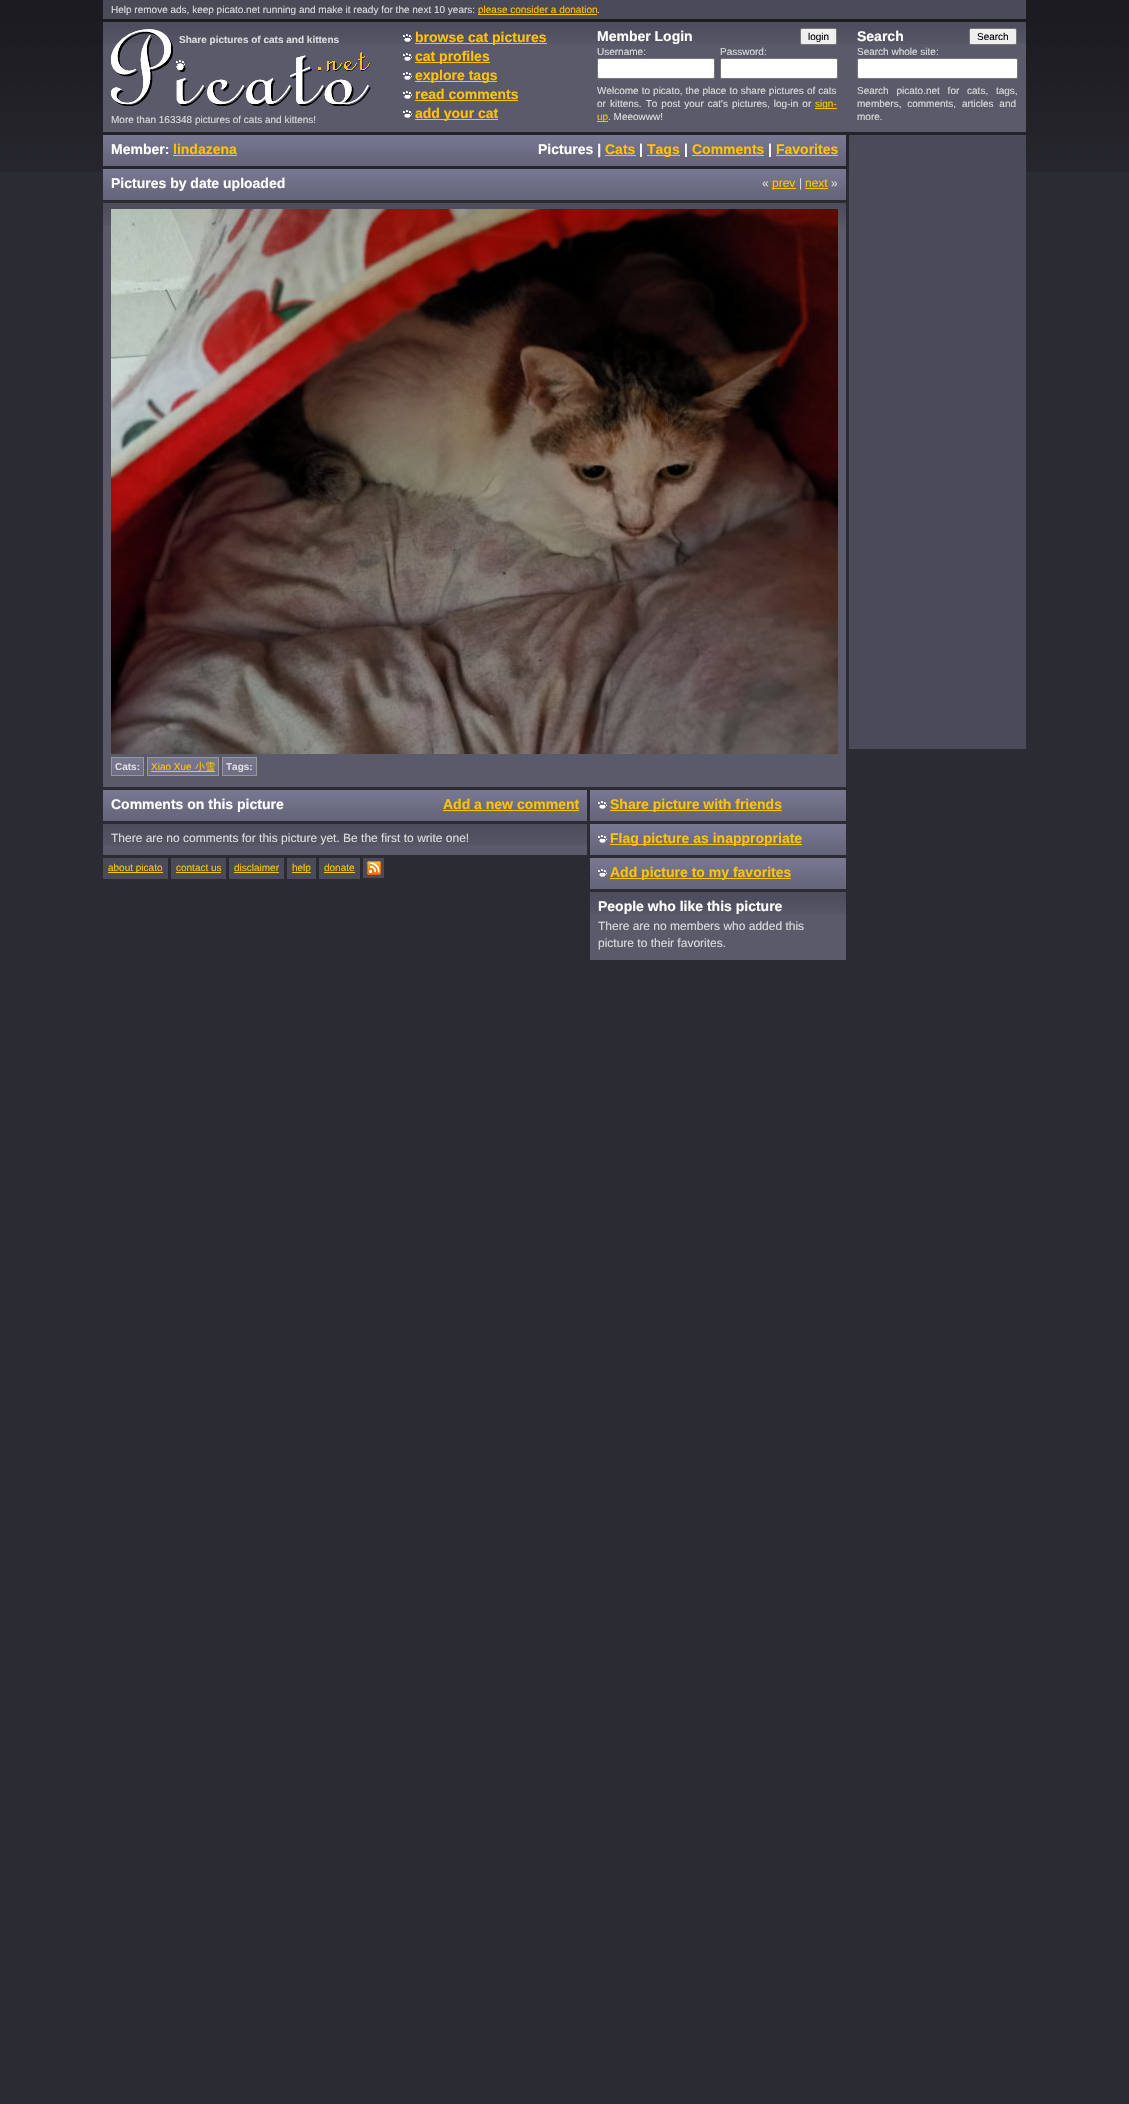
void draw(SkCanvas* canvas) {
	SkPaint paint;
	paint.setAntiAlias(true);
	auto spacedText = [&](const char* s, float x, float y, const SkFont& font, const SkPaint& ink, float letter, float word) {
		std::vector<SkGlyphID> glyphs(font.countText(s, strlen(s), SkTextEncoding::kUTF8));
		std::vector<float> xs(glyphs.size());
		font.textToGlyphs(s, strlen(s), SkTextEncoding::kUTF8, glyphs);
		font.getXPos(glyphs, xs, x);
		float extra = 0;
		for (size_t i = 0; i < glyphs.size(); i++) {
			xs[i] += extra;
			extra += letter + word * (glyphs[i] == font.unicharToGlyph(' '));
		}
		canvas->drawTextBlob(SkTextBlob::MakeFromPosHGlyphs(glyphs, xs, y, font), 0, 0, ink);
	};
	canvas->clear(0xff2b2b33);
	canvas->drawImageRect(SkImages::DeferredFromEncodedData(SkData::MakeFromFileName("img1.png")), SkRect::MakeXYWH(0, 0, 1129, 172), SkSamplingOptions());
	paint.setColor(0xff4a4a59);
	canvas->drawRect(SkRect::MakeXYWH(103, 0, 923, 19), paint);
	SkFont f1(fontMgr->matchFamilyStyle("Liberation Sans", SkFontStyle::Normal()), 10);
	f1.setSubpixel(true);
	paint.setColor(0xffdddddd);
	canvas->drawString("Help remove ads, keep picato.net running and make it ready for the next 10 years:", 111, 13, f1, paint);
	paint.setColor(0xffffc300);
	canvas->drawRect(SkRect::MakeXYWH(478, 14, 119, 1), paint);
	canvas->drawString("please consider a donation", 478, 13, f1, paint);
	paint.setColor(0xffdddddd);
	canvas->drawString(".", 597, 13, f1, paint);
	paint.setColor(0xff5a5a6b);
	canvas->drawRect(SkRect::MakeXYWH(103, 44, 923, 88), paint);
	canvas->drawImageRect(SkImages::DeferredFromEncodedData(SkData::MakeFromFileName("img2.png")), SkRect::MakeXYWH(103, 22, 923, 22), SkSamplingOptions());
	canvas->drawImageRect(SkImages::DeferredFromEncodedData(SkData::MakeFromFileName("img5.png")), SkRect::MakeXYWH(111, 29, 260, 78), SkSamplingOptions());
	SkFont f2(fontMgr->matchFamilyStyle("Liberation Sans", SkFontStyle::Bold()), 10);
	f2.setSubpixel(true);
	paint.setColor(0xffdddddd);
	canvas->drawString("Share pictures of cats and kittens", 179, 43, f2, paint);
	canvas->drawImageRect(SkImages::DeferredFromEncodedData(SkData::MakeFromFileName("img3.png")), SkRect::MakeXYWH(403, 34, 9, 8), SkSamplingOptions());
	paint.setColor(0xffffc300);
	canvas->drawRect(SkRect::MakeXYWH(415, 43, 132, 1), paint);
	SkFont f3(fontMgr->matchFamilyStyle("Liberation Sans", SkFontStyle::Bold()), 14);
	f3.setSubpixel(true);
	canvas->drawString("browse cat pictures", 415, 42, f3, paint);
	canvas->drawImageRect(SkImages::DeferredFromEncodedData(SkData::MakeFromFileName("img4.png")), SkRect::MakeXYWH(403, 53, 9, 8), SkSamplingOptions());
	canvas->drawRect(SkRect::MakeXYWH(415, 62, 75, 1), paint);
	canvas->drawString("cat profiles", 415, 61, f3, paint);
	canvas->drawImageRect(SkImages::DeferredFromEncodedData(SkData::MakeFromFileName("img4.png")), SkRect::MakeXYWH(403, 72, 9, 8), SkSamplingOptions());
	canvas->drawRect(SkRect::MakeXYWH(415, 81, 82, 1), paint);
	canvas->drawString("explore tags", 415, 80, f3, paint);
	canvas->drawImageRect(SkImages::DeferredFromEncodedData(SkData::MakeFromFileName("img4.png")), SkRect::MakeXYWH(403, 91, 9, 8), SkSamplingOptions());
	canvas->drawString("read comments", 415, 99, f3, paint);
	canvas->drawRect(SkRect::MakeXYWH(415, 100, 103, 1), paint);
	canvas->drawImageRect(SkImages::DeferredFromEncodedData(SkData::MakeFromFileName("img4.png")), SkRect::MakeXYWH(403, 110, 9, 8), SkSamplingOptions());
	canvas->drawRect(SkRect::MakeXYWH(415, 119, 83, 1), paint);
	canvas->drawString("add your cat", 415, 118, f3, paint);
	paint.setColor(0xffffffff);
	canvas->drawString("Member Login", 597, 41, f3, paint);
	paint.setColor(0xffefefef);
	canvas->drawRoundRect(SkRect::MakeXYWH(800.5, 28.5, 36, 16), 1.5, 1.5, paint);
	paint.setStroke(true);
	paint.setStrokeWidth(1);
	paint.setColor(0xff767676);
	canvas->drawRoundRect(SkRect::MakeXYWH(800.5, 28.5, 36, 16), 1.5, 1.5, paint);
	paint.setStroke(false);
	paint.setColor(0xff000000);
	canvas->drawString("login", 808, 40, f1, paint);
	paint.setColor(0xffdddddd);
	canvas->drawString("Username:", 597, 55, f1, paint);
	paint.setColor(0xffffffff);
	canvas->drawRoundRect(SkRect::MakeXYWH(597.5, 58.5, 117, 20), 1.5, 1.5, paint);
	paint.setStroke(true);
	paint.setColor(0xff767676);
	canvas->drawRoundRect(SkRect::MakeXYWH(597.5, 58.5, 117, 20), 1.5, 1.5, paint);
	paint.setStroke(false);
	paint.setColor(0xffdddddd);
	canvas->drawString("Password:", 720, 55, f1, paint);
	paint.setColor(0xffffffff);
	canvas->drawRoundRect(SkRect::MakeXYWH(720.5, 58.5, 117, 20), 1.5, 1.5, paint);
	paint.setStroke(true);
	paint.setColor(0xff767676);
	canvas->drawRoundRect(SkRect::MakeXYWH(720.5, 58.5, 117, 20), 1.5, 1.5, paint);
	paint.setStroke(false);
	paint.setColor(0xffdddddd);
	spacedText("Welcome to picato, the place to share pictures of cats", 597, 94, f1, paint, 0, 0.25);
	spacedText("or kittens. To post your cat's pictures, log-in or", 597, 107, f1, paint, 0, 1.25);
	paint.setColor(0xffffc300);
	canvas->drawRect(SkRect::MakeXYWH(815, 108, 22, 1), paint);
	canvas->drawString("sign-", 815, 107, f1, paint);
	canvas->drawRect(SkRect::MakeXYWH(597, 121, 11, 1), paint);
	canvas->drawString("up", 597, 120, f1, paint);
	paint.setColor(0xffdddddd);
	canvas->drawString(". Meeowww!", 608, 120, f1, paint);
	paint.setColor(0xffffffff);
	canvas->drawString("Search", 857, 41, f3, paint);
	paint.setColor(0xffefefef);
	canvas->drawRoundRect(SkRect::MakeXYWH(969.5, 28.5, 47, 16), 1.5, 1.5, paint);
	paint.setStroke(true);
	paint.setColor(0xff767676);
	canvas->drawRoundRect(SkRect::MakeXYWH(969.5, 28.5, 47, 16), 1.5, 1.5, paint);
	paint.setStroke(false);
	paint.setColor(0xff000000);
	canvas->drawString("Search", 977, 40, f1, paint);
	paint.setColor(0xffdddddd);
	canvas->drawString("Search whole site:", 857, 55, f1, paint);
	paint.setColor(0xffffffff);
	canvas->drawRoundRect(SkRect::MakeXYWH(857.5, 58.5, 160, 20), 1.5, 1.5, paint);
	paint.setStroke(true);
	paint.setColor(0xff767676);
	canvas->drawRoundRect(SkRect::MakeXYWH(857.5, 58.5, 160, 20), 1.5, 1.5, paint);
	paint.setStroke(false);
	paint.setColor(0xffdddddd);
	spacedText("Search picato.net for cats, tags,", 857, 94, f1, paint, 0, 5);
	spacedText("members, comments, articles and", 857, 107, f1, paint, 0, 3);
	canvas->drawString("more.", 857, 120, f1, paint);
	canvas->drawString("More than 163348 pictures of cats and kittens!", 111, 123, f1, paint);
	canvas->drawImageRect(SkImages::DeferredFromEncodedData(SkData::MakeFromFileName("img6.png")), SkRect::MakeXYWH(103, 135, 743, 31), SkSamplingOptions());
	paint.setColor(0xffffffff);
	canvas->drawString("Member:", 111, 154, f3, paint);
	paint.setColor(0xffffc300);
	canvas->drawString("lindazena", 173, 154, f3, paint);
	canvas->drawRect(SkRect::MakeXYWH(173, 155, 64, 1), paint);
	paint.setColor(0xffffffff);
	canvas->drawString("Pictures |", 538, 154, f3, paint);
	paint.setColor(0xffffc300);
	canvas->drawString("Cats", 605, 154, f3, paint);
	canvas->drawRect(SkRect::MakeXYWH(605, 155, 31, 1), paint);
	paint.setColor(0xffffffff);
	canvas->drawString("|", 639, 154, f3, paint);
	paint.setColor(0xffffc300);
	canvas->drawRect(SkRect::MakeXYWH(647, 155, 33, 1), paint);
	canvas->drawString("Tags", 647, 154, f3, paint);
	paint.setColor(0xffffffff);
	canvas->drawString("|", 684, 154, f3, paint);
	paint.setColor(0xffffc300);
	canvas->drawString("Comments", 692, 154, f3, paint);
	canvas->drawRect(SkRect::MakeXYWH(692, 155, 72, 1), paint);
	paint.setColor(0xffffffff);
	canvas->drawString("|", 768, 154, f3, paint);
	paint.setColor(0xffffc300);
	canvas->drawString("Favorites", 776, 154, f3, paint);
	canvas->drawRect(SkRect::MakeXYWH(776, 155, 62, 1), paint);
	canvas->drawImageRect(SkImages::DeferredFromEncodedData(SkData::MakeFromFileName("img6.png")), SkRect::MakeXYWH(103, 169, 743, 31), SkSamplingOptions());
	paint.setColor(0xffffffff);
	canvas->drawString("Pictures by date uploaded", 111, 188, f3, paint);
	SkFont f4(fontMgr->matchFamilyStyle("Liberation Sans", SkFontStyle::Normal()), 12);
	f4.setSubpixel(true);
	paint.setColor(0xffdddddd);
	canvas->drawString("«", 762, 187, f4, paint);
	paint.setColor(0xffffc300);
	canvas->drawRect(SkRect::MakeXYWH(772, 188, 24, 1), paint);
	canvas->drawString("prev", 772, 187, f4, paint);
	paint.setColor(0xffdddddd);
	canvas->drawString("|", 799, 187, f4, paint);
	paint.setColor(0xffffc300);
	canvas->drawString("next", 805, 187, f4, paint);
	canvas->drawRect(SkRect::MakeXYWH(805, 188, 23, 1), paint);
	paint.setColor(0xffdddddd);
	canvas->drawString("»", 831, 187, f4, paint);
	paint.setColor(0xff5a5a6b);
	canvas->drawRect(SkRect::MakeXYWH(103, 225, 743, 562), paint);
	canvas->drawImageRect(SkImages::DeferredFromEncodedData(SkData::MakeFromFileName("img7.png")), SkRect::MakeXYWH(103, 203, 743, 22), SkSamplingOptions());
	canvas->drawImageRect(SkImages::DeferredFromEncodedData(SkData::MakeFromFileName("img8.png")), SkRect::MakeXYWH(111, 209, 727, 545), SkSamplingOptions());
	canvas->drawImageRect(SkImages::DeferredFromEncodedData(SkData::MakeFromFileName("img9.png")), SkRect::MakeXYWH(112, 758, 31, 17), SkSamplingOptions());
	canvas->drawImageRect(SkImages::DeferredFromEncodedData(SkData::MakeFromFileName("img10.png")), SkRect::MakeXYWH(148, 758, 70, 17), SkSamplingOptions());
	canvas->drawImageRect(SkImages::DeferredFromEncodedData(SkData::MakeFromFileName("img11.png")), SkRect::MakeXYWH(223, 758, 33, 17), SkSamplingOptions());
	paint.setStroke(true);
	paint.setColor(0xff999999);
	canvas->drawRect(SkRect::MakeXYWH(111.5, 757.5, 32, 18), paint);
	paint.setStroke(false);
	paint.setColor(0xffdddddd);
	canvas->drawString("Cats:", 115, 770, f2, paint);
	paint.setStroke(true);
	paint.setColor(0xff999999);
	canvas->drawRect(SkRect::MakeXYWH(147.5, 757.5, 71, 18), paint);
	paint.setStroke(false);
	paint.setColor(0xffffc300);
	canvas->drawString("Xiao Xue", 151, 770, f1, paint);
	canvas->drawRect(SkRect::MakeXYWH(151, 771, 64, 1), paint);
	SkFont f5(fontMgr->matchFamilyStyle("WenQuanYi Zen Hei", SkFontStyle(500, SkFontStyle::kNormal_Width, SkFontStyle::kUpright_Slant)), 10);
	f5.setSubpixel(true);
	canvas->drawString("小雪", 195, 770, f5, paint);
	paint.setStroke(true);
	paint.setColor(0xff999999);
	canvas->drawRect(SkRect::MakeXYWH(222.5, 757.5, 34, 18), paint);
	paint.setStroke(false);
	paint.setColor(0xffdddddd);
	canvas->drawString("Tags:", 226, 770, f2, paint);
	canvas->drawImageRect(SkImages::DeferredFromEncodedData(SkData::MakeFromFileName("img12.png")), SkRect::MakeXYWH(103, 790, 484, 31), SkSamplingOptions());
	paint.setColor(0xffffffff);
	canvas->drawString("Comments on this picture", 111, 809, f3, paint);
	paint.setColor(0xffffc300);
	canvas->drawString("Add a new comment", 443, 809, f3, paint);
	canvas->drawRect(SkRect::MakeXYWH(443, 810, 136, 1), paint);
	paint.setColor(0xff5a5a6b);
	canvas->drawRect(SkRect::MakeXYWH(103, 846, 484, 9), paint);
	canvas->drawImageRect(SkImages::DeferredFromEncodedData(SkData::MakeFromFileName("img13.png")), SkRect::MakeXYWH(103, 824, 484, 22), SkSamplingOptions());
	paint.setColor(0xffdddddd);
	canvas->drawString("There are no comments for this picture yet. Be the first to write one!", 111, 842, f4, paint);
	paint.setColor(0xff4a4a59);
	canvas->drawRect(SkRect::MakeXYWH(103, 858, 65, 21), paint);
	paint.setColor(0xffffc300);
	canvas->drawRect(SkRect::MakeXYWH(108, 872, 55, 1), paint);
	canvas->drawString("about picato", 108, 871, f1, paint);
	paint.setColor(0xff4a4a59);
	canvas->drawRect(SkRect::MakeXYWH(171, 858, 55, 21), paint);
	paint.setColor(0xffffc300);
	canvas->drawString("contact us", 176, 871, f1, paint);
	canvas->drawRect(SkRect::MakeXYWH(176, 872, 45, 1), paint);
	paint.setColor(0xff4a4a59);
	canvas->drawRect(SkRect::MakeXYWH(229, 858, 55, 21), paint);
	paint.setColor(0xffffc300);
	canvas->drawString("disclaimer", 234, 871, f1, paint);
	canvas->drawRect(SkRect::MakeXYWH(234, 872, 45, 1), paint);
	paint.setColor(0xff4a4a59);
	canvas->drawRect(SkRect::MakeXYWH(287, 858, 29, 21), paint);
	paint.setColor(0xffffc300);
	canvas->drawRect(SkRect::MakeXYWH(292, 872, 19, 1), paint);
	canvas->drawString("help", 292, 871, f1, paint);
	paint.setColor(0xff4a4a59);
	canvas->drawRect(SkRect::MakeXYWH(319, 858, 41, 21), paint);
	paint.setColor(0xffffc300);
	canvas->drawString("donate", 324, 871, f1, paint);
	canvas->drawRect(SkRect::MakeXYWH(324, 872, 31, 1), paint);
	paint.setColor(0xff4a4a59);
	canvas->drawRect(SkRect::MakeXYWH(363, 858, 21, 20), paint);
	canvas->drawImageRect(SkImages::DeferredFromEncodedData(SkData::MakeFromFileName("img14.png")), SkRect::MakeXYWH(367, 861, 14, 14), SkSamplingOptions());
	canvas->drawImageRect(SkImages::DeferredFromEncodedData(SkData::MakeFromFileName("img15.png")), SkRect::MakeXYWH(590, 790, 256, 31), SkSamplingOptions());
	canvas->drawImageRect(SkImages::DeferredFromEncodedData(SkData::MakeFromFileName("img16.png")), SkRect::MakeXYWH(598, 801, 9, 8), SkSamplingOptions());
	paint.setColor(0xffffc300);
	canvas->drawRect(SkRect::MakeXYWH(610, 810, 172, 1), paint);
	canvas->drawString("Share picture with friends", 610, 809, f3, paint);
	canvas->drawImageRect(SkImages::DeferredFromEncodedData(SkData::MakeFromFileName("img15.png")), SkRect::MakeXYWH(590, 824, 256, 31), SkSamplingOptions());
	canvas->drawImageRect(SkImages::DeferredFromEncodedData(SkData::MakeFromFileName("img16.png")), SkRect::MakeXYWH(598, 835, 9, 8), SkSamplingOptions());
	canvas->drawRect(SkRect::MakeXYWH(610, 844, 192, 1), paint);
	canvas->drawString("Flag picture as inappropriate", 610, 843, f3, paint);
	canvas->drawImageRect(SkImages::DeferredFromEncodedData(SkData::MakeFromFileName("img15.png")), SkRect::MakeXYWH(590, 858, 256, 31), SkSamplingOptions());
	canvas->drawImageRect(SkImages::DeferredFromEncodedData(SkData::MakeFromFileName("img16.png")), SkRect::MakeXYWH(598, 869, 9, 8), SkSamplingOptions());
	canvas->drawRect(SkRect::MakeXYWH(610, 878, 181, 1), paint);
	canvas->drawString("Add picture to my favorites", 610, 877, f3, paint);
	paint.setColor(0xff5a5a6b);
	canvas->drawRect(SkRect::MakeXYWH(590, 914, 256, 46), paint);
	canvas->drawImageRect(SkImages::DeferredFromEncodedData(SkData::MakeFromFileName("img17.png")), SkRect::MakeXYWH(590, 892, 256, 22), SkSamplingOptions());
	paint.setColor(0xffffffff);
	canvas->drawString("People who like this picture", 598, 911, f3, paint);
	paint.setColor(0xffdddddd);
	canvas->drawString("There are no members who added this", 598, 930, f4, paint);
	canvas->drawString("picture to their favorites.", 598, 947, f4, paint);
	paint.setColor(0xff4a4a59);
	canvas->drawRect(SkRect::MakeXYWH(849, 135, 177, 614), paint);
}
